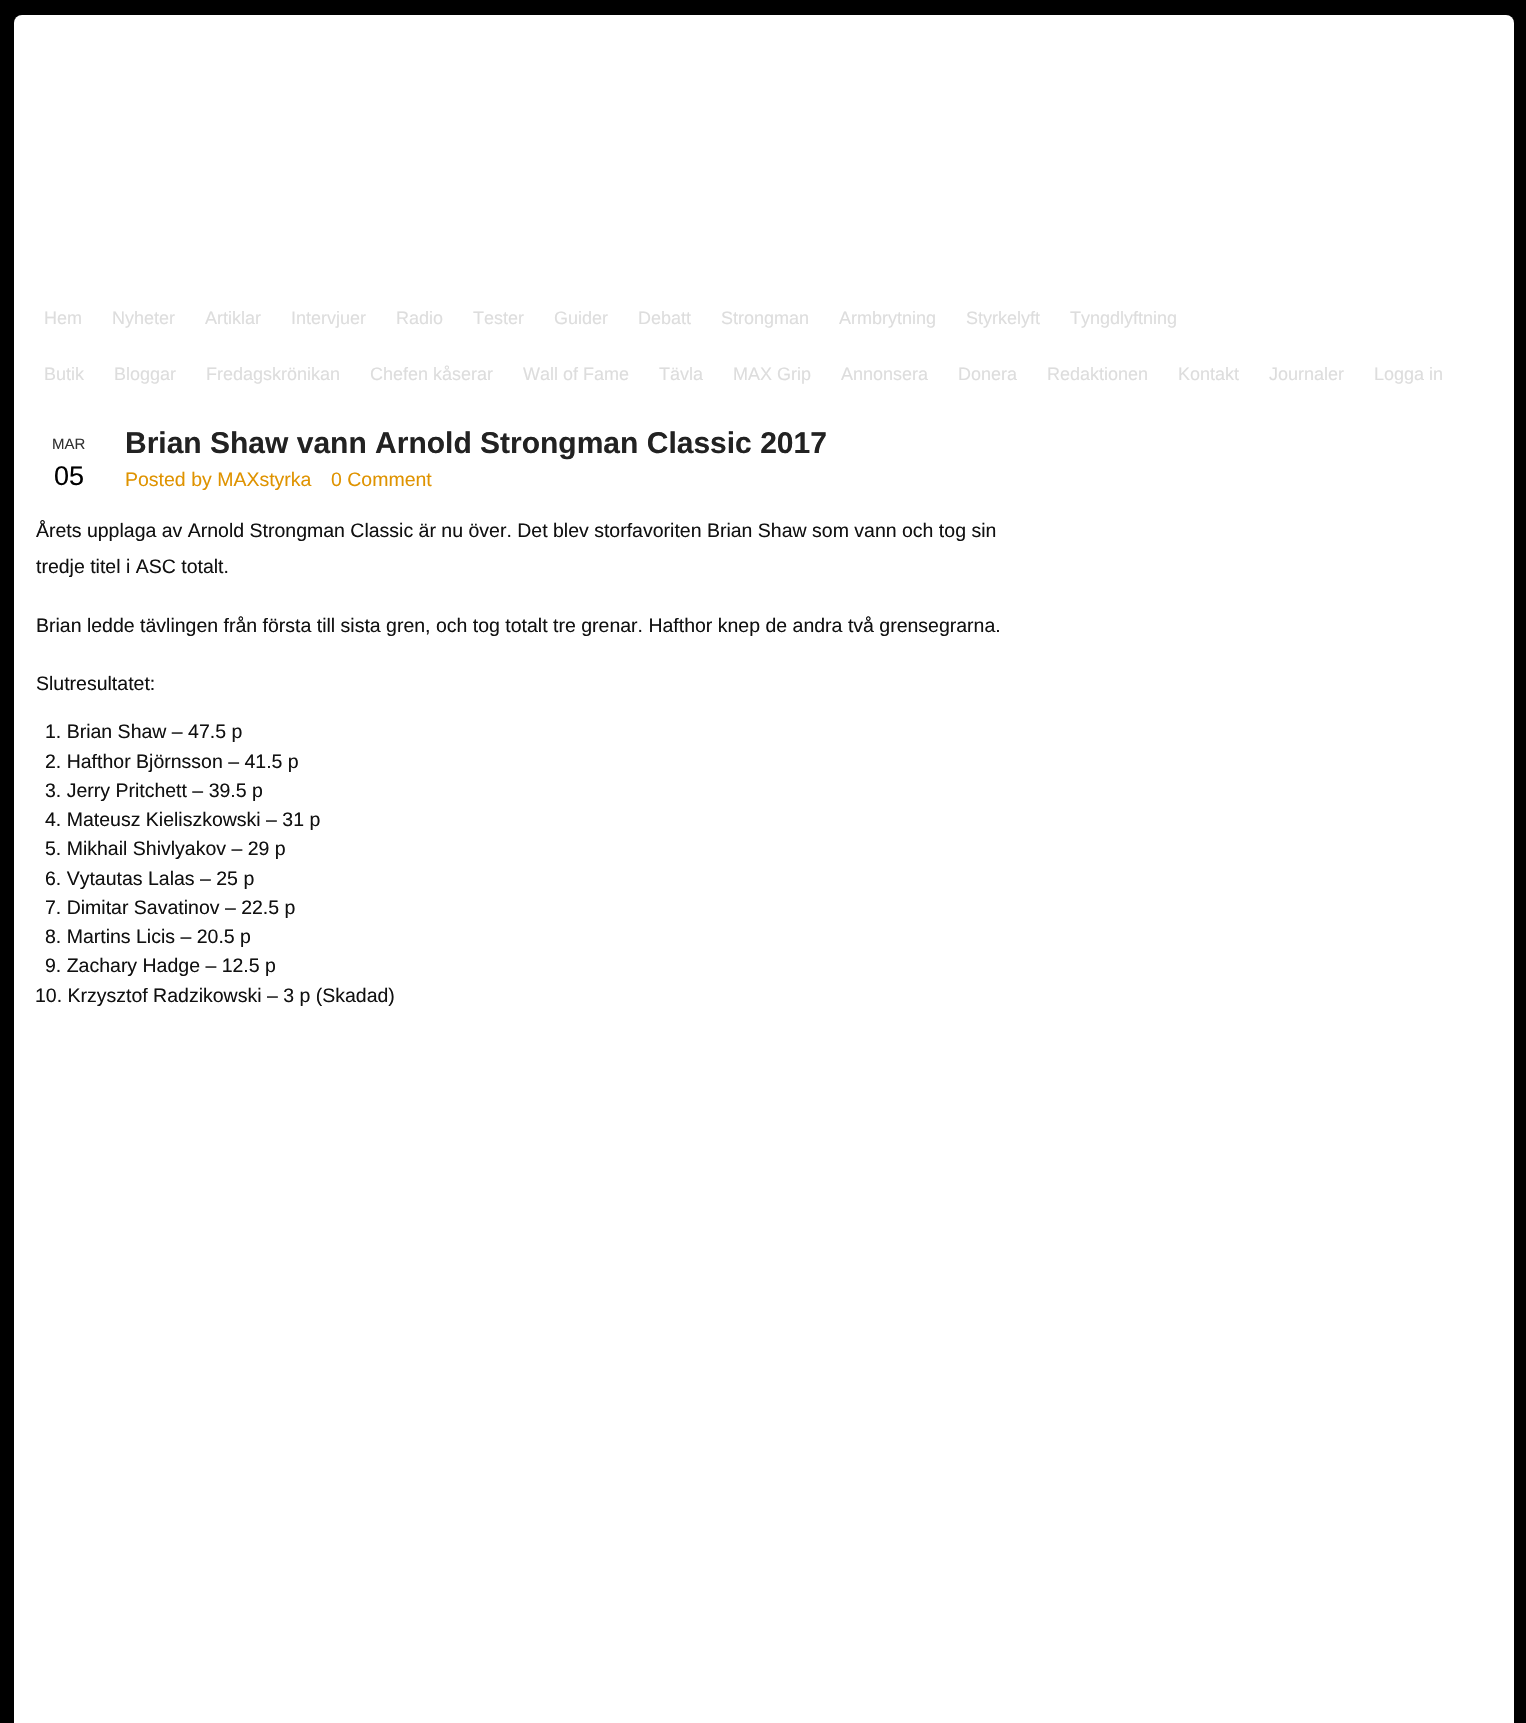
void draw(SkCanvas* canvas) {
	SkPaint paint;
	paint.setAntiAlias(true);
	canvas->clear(0xff000000);
	paint.setColor(0xffffffff);
	canvas->drawRoundRect(SkRect::MakeXYWH(14, 15, 1500, 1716), 8, 8, paint);
	SkFont f1(fontMgr->matchFamilyStyle("Liberation Sans", SkFontStyle::Normal()), 18);
	f1.setSubpixel(true);
	paint.setColor(0xffdddddd);
	canvas->drawString("Hem", 44, 324, f1, paint);
	canvas->drawString("Nyheter", 112, 324, f1, paint);
	canvas->drawString("Artiklar", 205, 324, f1, paint);
	canvas->drawString("Intervjuer", 291, 324, f1, paint);
	canvas->drawString("Radio", 396, 324, f1, paint);
	canvas->drawString("Tester", 473, 324, f1, paint);
	canvas->drawString("Guider", 554, 324, f1, paint);
	canvas->drawString("Debatt", 638, 324, f1, paint);
	canvas->drawString("Strongman", 721, 324, f1, paint);
	canvas->drawString("Armbrytning", 839, 324, f1, paint);
	canvas->drawString("Styrkelyft", 966, 324, f1, paint);
	canvas->drawString("Tyngdlyftning", 1070, 324, f1, paint);
	canvas->drawString("Butik", 44, 380, f1, paint);
	canvas->drawString("Bloggar", 114, 380, f1, paint);
	canvas->drawString("Fredagskrönikan", 206, 380, f1, paint);
	canvas->drawString("Chefen kåserar", 370, 380, f1, paint);
	canvas->drawString("Wall of Fame", 523, 380, f1, paint);
	canvas->drawString("Tävla", 659, 380, f1, paint);
	canvas->drawString("MAX Grip", 733, 380, f1, paint);
	canvas->drawString("Annonsera", 841, 380, f1, paint);
	canvas->drawString("Donera", 958, 380, f1, paint);
	canvas->drawString("Redaktionen", 1047, 380, f1, paint);
	canvas->drawString("Kontakt", 1178, 380, f1, paint);
	canvas->drawString("Journaler", 1269, 380, f1, paint);
	canvas->drawString("Logga in", 1374, 380, f1, paint);
	SkFont f2(fontMgr->matchFamilyStyle("Liberation Sans", SkFontStyle::Normal()), 15);
	f2.setSubpixel(true);
	paint.setColor(0xff333333);
	canvas->drawString("MAR", 52, 449, f2, paint);
	SkFont f3(fontMgr->matchFamilyStyle("Liberation Sans", SkFontStyle::Normal()), 27);
	f3.setSubpixel(true);
	paint.setColor(0xff000000);
	canvas->drawString("05", 54, 485, f3, paint);
	SkFont f4(fontMgr->matchFamilyStyle("Liberation Sans", SkFontStyle::Bold()), 30);
	f4.setSubpixel(true);
	paint.setColor(0xff222222);
	canvas->drawString("Brian Shaw vann Arnold Strongman Classic 2017", 125, 453, f4, paint);
	SkFont f5(fontMgr->matchFamilyStyle("Liberation Sans", SkFontStyle::Normal()), 19.5);
	f5.setSubpixel(true);
	paint.setColor(0xffdf9300);
	canvas->drawString("Posted by MAXstyrka", 125, 486, f5, paint);
	canvas->drawString("0 Comment", 331, 486, f5, paint);
	paint.setColor(0xff111111);
	canvas->drawString("Årets upplaga av Arnold Strongman Classic är nu över. Det blev storfavoriten Brian Shaw som vann och tog sin", 36, 537, f5, paint);
	canvas->drawString("tredje titel i ASC totalt.", 36, 573, f5, paint);
	canvas->drawString("Brian ledde tävlingen från första till sista gren, och tog totalt tre grenar. Hafthor knep de andra två grensegrarna.", 36, 632, f5, paint);
	canvas->drawString("Slutresultatet:", 36, 690, f5, paint);
	canvas->drawString("1. Brian Shaw – 47.5 p", 45, 738, f5, paint);
	canvas->drawString("2. Hafthor Björnsson – 41.5 p", 45, 768, f5, paint);
	canvas->drawString("3. Jerry Pritchett – 39.5 p", 45, 797, f5, paint);
	canvas->drawString("4. Mateusz Kieliszkowski – 31 p", 45, 826, f5, paint);
	canvas->drawString("5. Mikhail Shivlyakov – 29 p", 45, 855, f5, paint);
	canvas->drawString("6. Vytautas Lalas – 25 p", 45, 885, f5, paint);
	canvas->drawString("7. Dimitar Savatinov – 22.5 p", 45, 914, f5, paint);
	canvas->drawString("8. Martins Licis – 20.5 p", 45, 943, f5, paint);
	canvas->drawString("9. Zachary Hadge – 12.5 p", 45, 972, f5, paint);
	canvas->drawString("10. Krzysztof Radzikowski – 3 p (Skadad)", 35, 1002, f5, paint);
}
